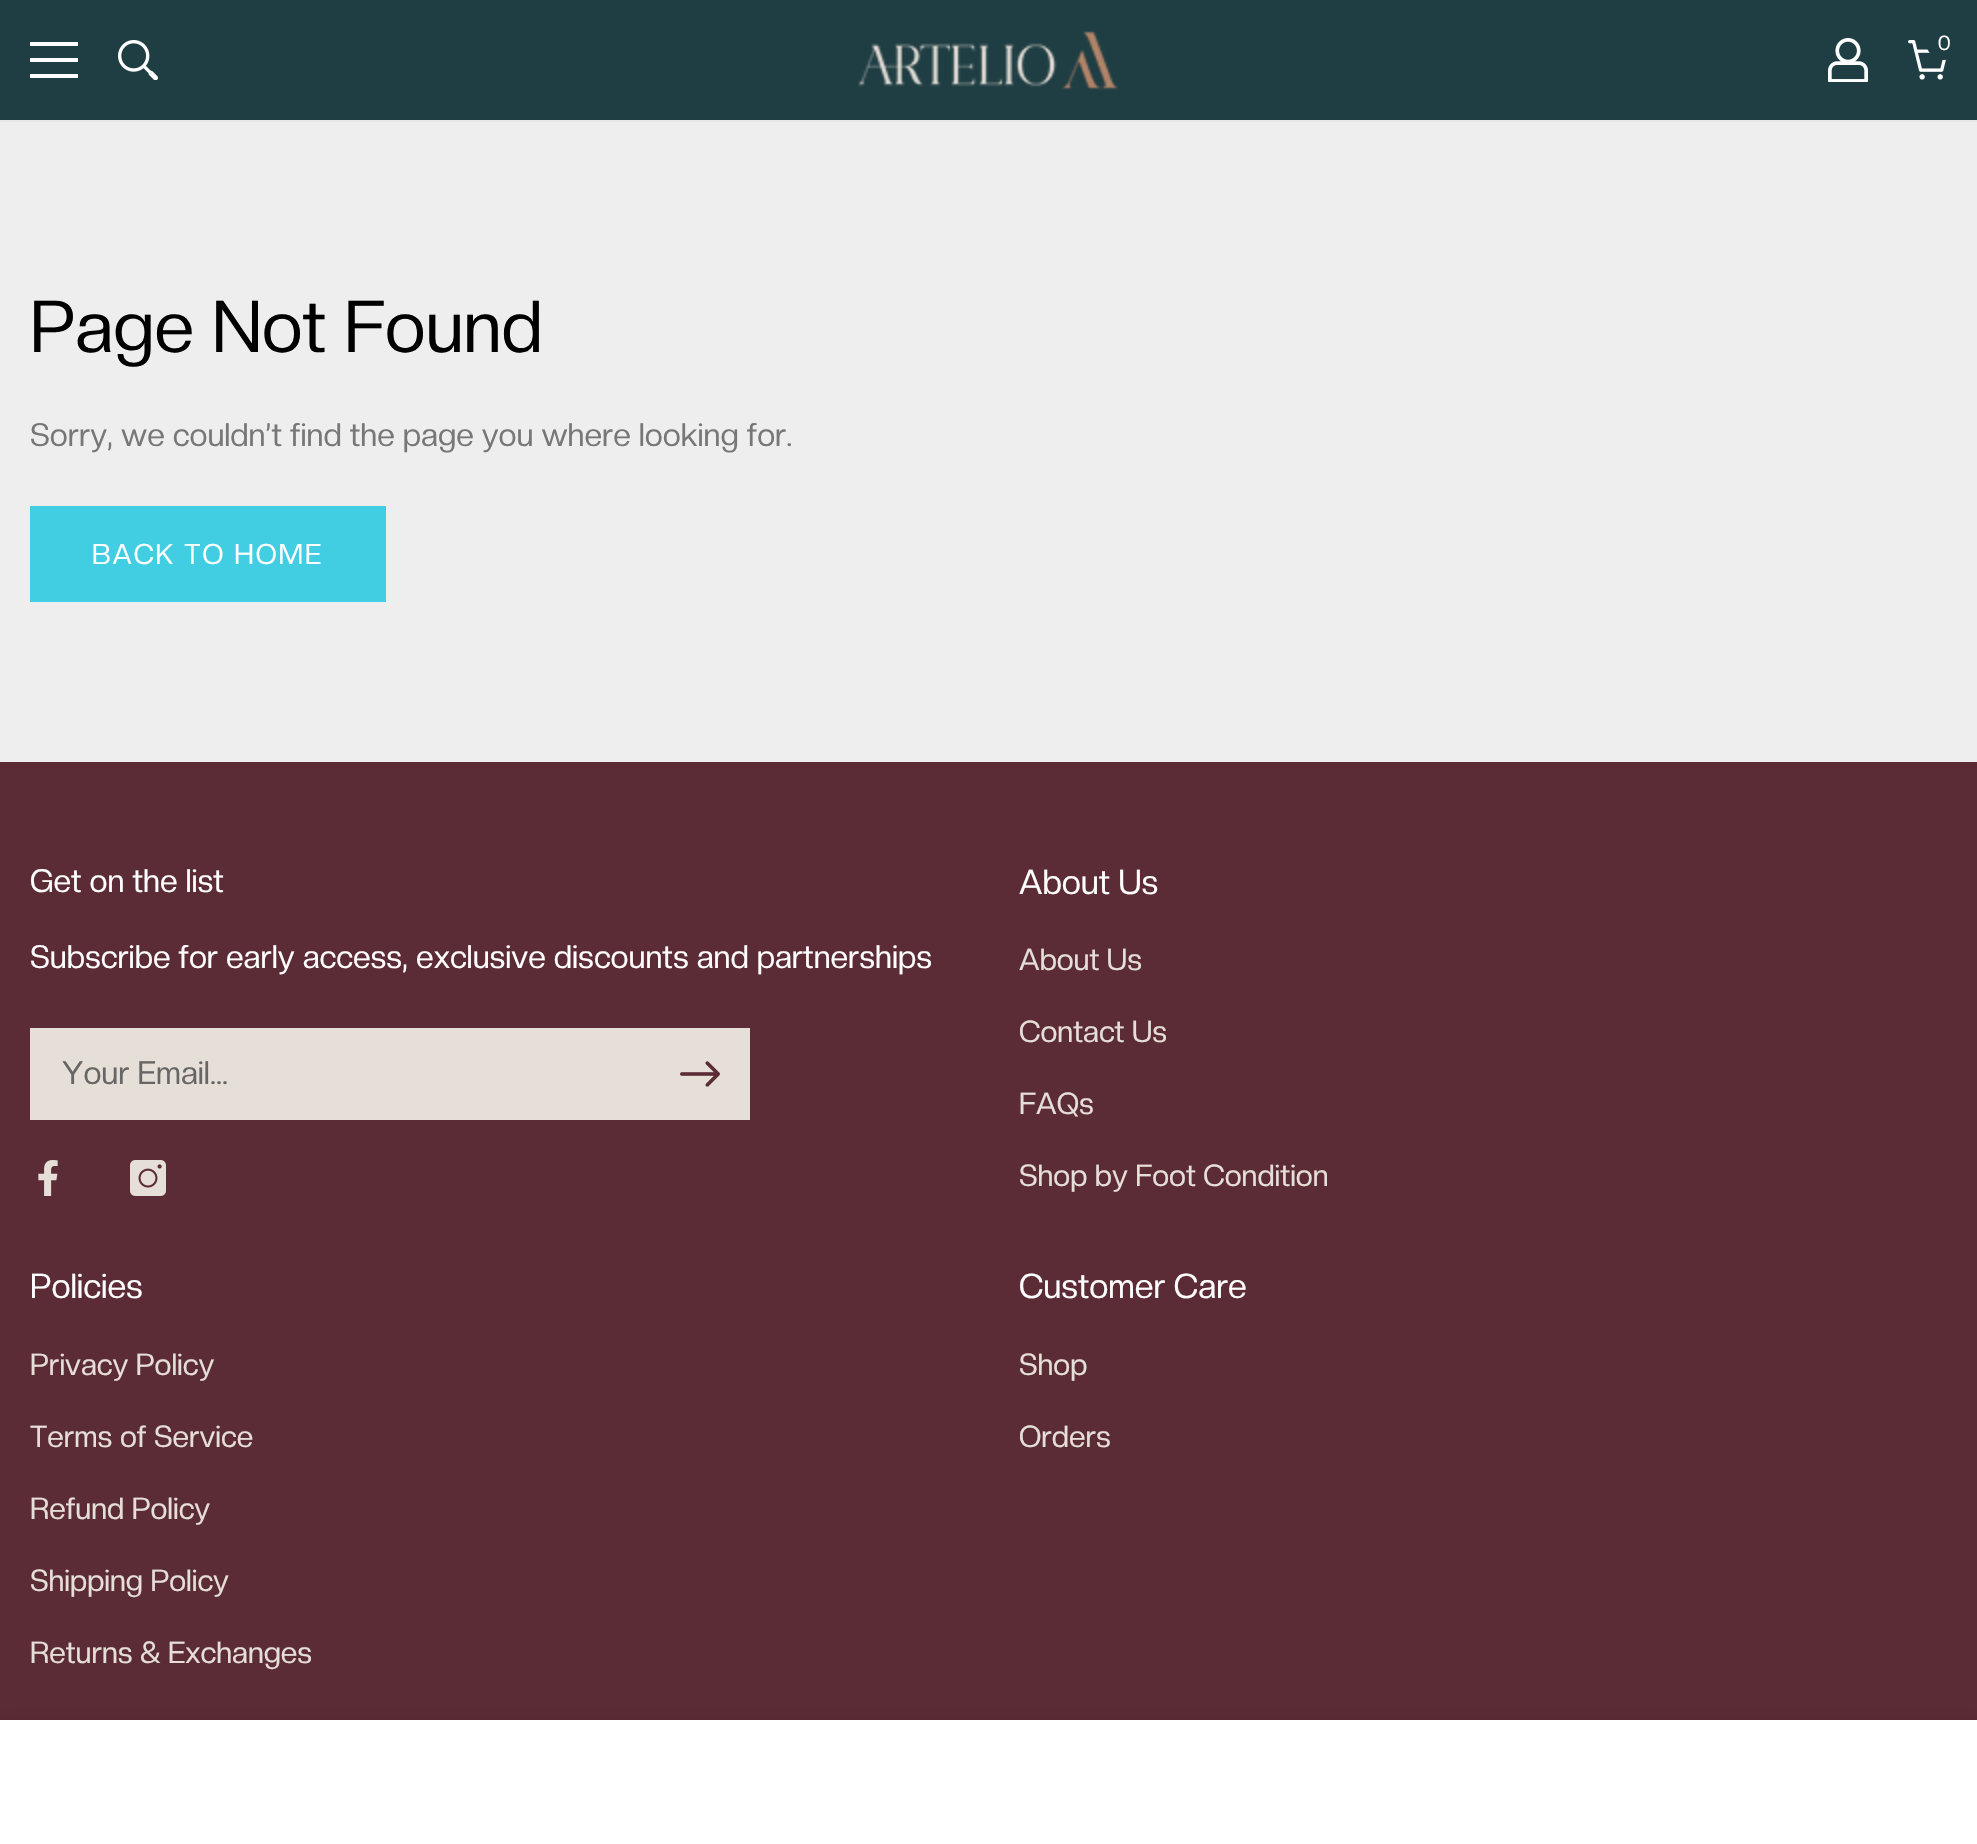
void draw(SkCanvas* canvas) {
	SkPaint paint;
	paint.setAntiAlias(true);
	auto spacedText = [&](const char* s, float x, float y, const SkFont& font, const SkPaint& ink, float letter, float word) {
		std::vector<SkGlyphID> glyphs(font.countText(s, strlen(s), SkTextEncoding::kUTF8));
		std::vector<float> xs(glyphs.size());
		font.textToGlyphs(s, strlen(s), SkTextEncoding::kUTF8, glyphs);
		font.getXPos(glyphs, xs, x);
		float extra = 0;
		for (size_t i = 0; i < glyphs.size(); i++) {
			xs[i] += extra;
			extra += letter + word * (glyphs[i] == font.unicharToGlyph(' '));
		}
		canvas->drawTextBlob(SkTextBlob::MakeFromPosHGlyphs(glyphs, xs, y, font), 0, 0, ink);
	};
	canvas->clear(0xffeeeeee);
	paint.setColor(0xffe6e6e6);
	canvas->drawRect(SkRect::MakeXYWH(0, 120, 1977, 2), paint);
	paint.setColor(0xff1f3e43);
	canvas->drawRect(SkRect::MakeXYWH(0, 0, 1977, 120), paint);
	paint.setColor(0xffffffff);
	canvas->drawRect(SkRect::MakeXYWH(30, 58, 48, 4), paint);
	canvas->drawRect(SkRect::MakeXYWH(30, 42, 48, 4), paint);
	canvas->drawRect(SkRect::MakeXYWH(30, 74, 48, 4), paint);
	canvas->drawImageRect(SkImages::DeferredFromEncodedData(SkData::MakeFromFileName("img1.png")), SkRect::MakeXYWH(118, 40, 40, 40), SkSamplingOptions());
	canvas->drawImageRect(SkImages::DeferredFromEncodedData(SkData::MakeFromFileName("img2.png")), SkRect::MakeXYWH(858, 30, 261, 60), SkSamplingOptions());
	canvas->drawImageRect(SkImages::DeferredFromEncodedData(SkData::MakeFromFileName("img3.png")), SkRect::MakeXYWH(1828, 38, 40, 44), SkSamplingOptions());
	canvas->drawImageRect(SkImages::DeferredFromEncodedData(SkData::MakeFromFileName("img4.png")), SkRect::MakeXYWH(1908, 40, 39, 40), SkSamplingOptions());
	paint.setColor(0xff1f3e43);
	canvas->drawCircle(1944, 42, 18, paint);
	SkFont f1(fontMgr->matchFamilyStyle("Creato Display", SkFontStyle::Normal()), 20);
	f1.setSubpixel(true);
	paint.setColor(0xffffffff);
	canvas->drawString("0", 1938, 50, f1, paint);
	SkFont f2(fontMgr->matchFamilyStyle("Creato Display", SkFontStyle::Normal()), 72);
	f2.setSubpixel(true);
	paint.setColor(0xff000000);
	canvas->drawString("Page Not Found", 30, 352, f2, paint);
	SkFont f3(fontMgr->matchFamilyStyle("Creato Display", SkFontStyle::Normal()), 32);
	f3.setSubpixel(true);
	paint.setColor(0xff777777);
	canvas->drawString("Sorry, we couldn’t find the page you where looking for.", 30, 446, f3, paint);
	paint.setColor(0xff41cde2);
	canvas->drawRect(SkRect::MakeXYWH(30, 506, 356, 96), paint);
	SkFont f4(fontMgr->matchFamilyStyle("Creato Display", SkFontStyle::Normal()), 28);
	f4.setSubpixel(true);
	paint.setColor(0xffffffff);
	spacedText("BACK TO HOME", 92, 564, f4, paint, 2, 0);
	paint.setColor(0xff5b2c36);
	canvas->drawRect(SkRect::MakeXYWH(0, 762, 1977, 958), paint);
	paint.setColor(0xffffffff);
	canvas->drawString("Get on the list", 30, 892, f3, paint);
	canvas->drawString("Subscribe for early access, exclusive discounts and partnerships", 30, 968, f3, paint);
	paint.setColor(0xffe6dfd7);
	canvas->drawRect(SkRect::MakeXYWH(30, 1028, 720, 92), paint);
	paint.setColor(0xff666666);
	canvas->drawString("Your Email...", 62, 1084, f3, paint);
	canvas->drawImageRect(SkImages::DeferredFromEncodedData(SkData::MakeFromFileName("img5.png")), SkRect::MakeXYWH(680, 1061, 40, 26), SkSamplingOptions());
	canvas->drawImageRect(SkImages::DeferredFromEncodedData(SkData::MakeFromFileName("img6.png")), SkRect::MakeXYWH(38, 1160, 20, 36), SkSamplingOptions());
	canvas->drawImageRect(SkImages::DeferredFromEncodedData(SkData::MakeFromFileName("img7.png")), SkRect::MakeXYWH(130, 1160, 36, 36), SkSamplingOptions());
	SkFont f5(fontMgr->matchFamilyStyle("Creato Display", SkFontStyle::Normal()), 34);
	f5.setSubpixel(true);
	paint.setColor(0xffffffff);
	canvas->drawString("About Us", 1019, 894, f5, paint);
	SkFont f6(fontMgr->matchFamilyStyle("Creato Display", SkFontStyle::Normal()), 30);
	f6.setSubpixel(true);
	paint.setColor(0xffe6dfd7);
	canvas->drawString("About Us", 1019, 970, f6, paint);
	canvas->drawString("Contact Us", 1019, 1042, f6, paint);
	canvas->drawString("FAQs", 1019, 1114, f6, paint);
	canvas->drawString("Shop by Foot Condition", 1019, 1186, f6, paint);
	paint.setColor(0xffffffff);
	canvas->drawString("Policies", 30, 1298, f5, paint);
	paint.setColor(0xffe6dfd7);
	canvas->drawString("Privacy Policy", 30, 1375, f6, paint);
	canvas->drawString("Terms of Service", 30, 1447, f6, paint);
	canvas->drawString("Refund Policy", 30, 1519, f6, paint);
	canvas->drawString("Shipping Policy", 30, 1591, f6, paint);
	canvas->drawString("Returns & Exchanges", 30, 1663, f6, paint);
	paint.setColor(0xffffffff);
	canvas->drawString("Customer Care", 1019, 1298, f5, paint);
	paint.setColor(0xffe6dfd7);
	canvas->drawString("Shop", 1019, 1375, f6, paint);
	canvas->drawString("Orders", 1019, 1447, f6, paint);
	paint.setColor(0x1f000000);
	paint.setMaskFilter(SkMaskFilter::MakeBlur(kNormal_SkBlurStyle, 9));
	canvas->drawRect(SkRect::MakeXYWH(0, 1720, 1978, 124), paint);
	paint.setMaskFilter(nullptr);
	paint.setColor(0xffffffff);
	canvas->drawRect(SkRect::MakeXYWH(0, 1720, 1977, 124), paint);
}
